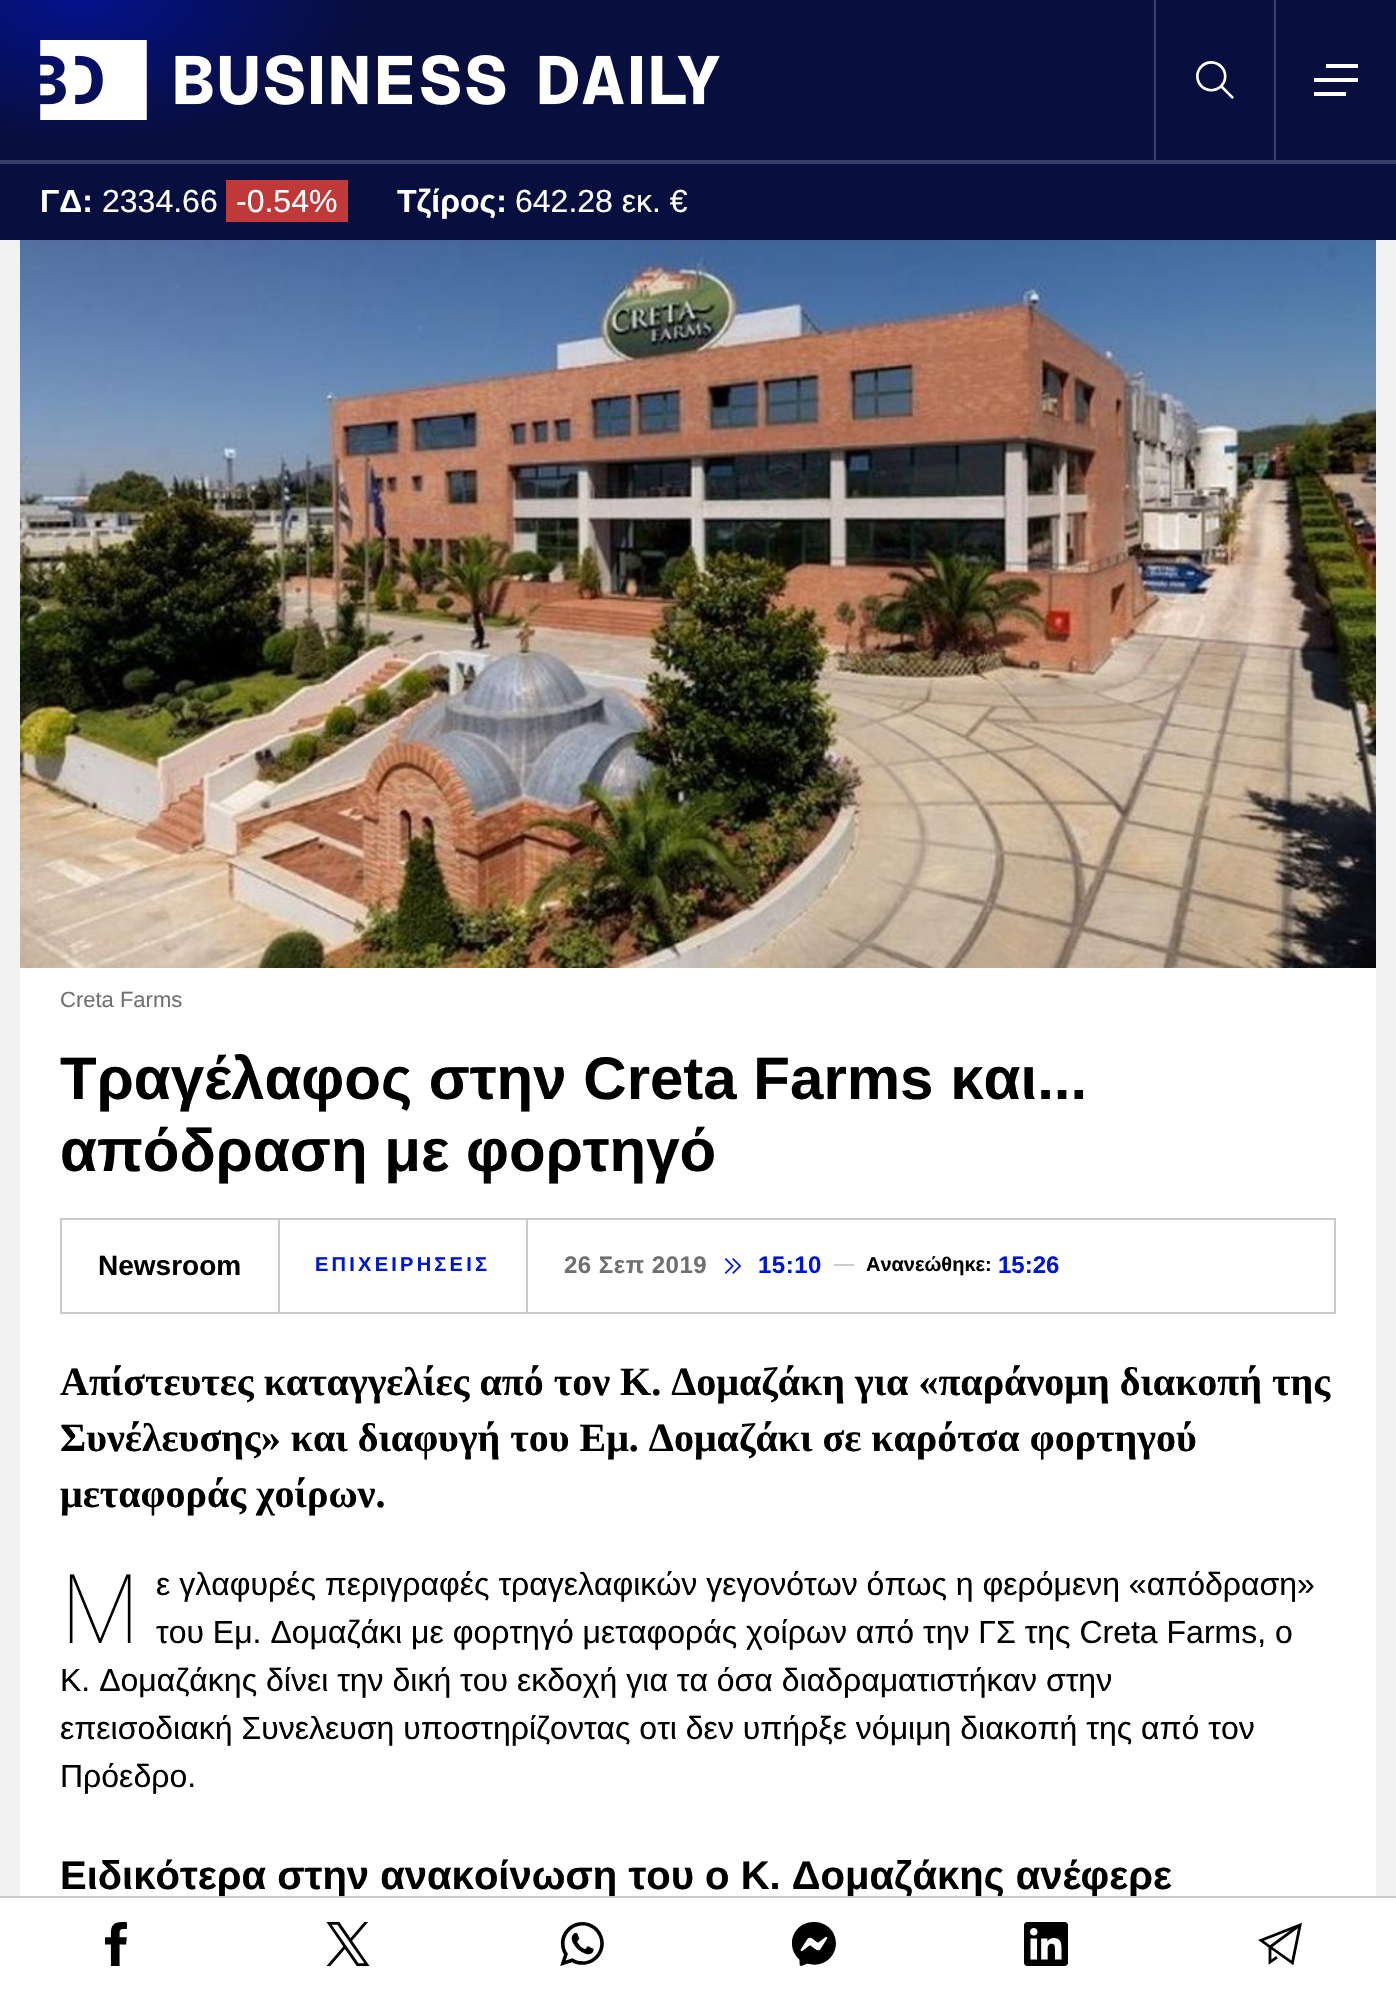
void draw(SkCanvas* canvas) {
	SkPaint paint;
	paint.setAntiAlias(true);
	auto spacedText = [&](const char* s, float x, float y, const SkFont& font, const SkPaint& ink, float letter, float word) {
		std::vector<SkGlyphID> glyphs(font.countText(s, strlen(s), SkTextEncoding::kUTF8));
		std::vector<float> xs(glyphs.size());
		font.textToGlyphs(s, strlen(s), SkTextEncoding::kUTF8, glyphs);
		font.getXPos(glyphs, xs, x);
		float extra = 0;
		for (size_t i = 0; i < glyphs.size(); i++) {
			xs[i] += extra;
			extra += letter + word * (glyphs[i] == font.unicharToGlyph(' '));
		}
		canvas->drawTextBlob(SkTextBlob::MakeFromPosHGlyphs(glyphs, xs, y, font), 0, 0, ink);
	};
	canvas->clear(0xfff2f2f2);
	paint.setColor(0xff080e3e);
	canvas->drawRect(SkRect::MakeXYWH(0, 0, 1396, 240), paint);
	{
		const SkColor colors[] = {0xff04128a, 0xff080e3e};
		const float stops[] = {0, 0.5};
		SkMatrix m = SkMatrix::Translate(80, 0).preScale(566, 283);
		paint.setShader(SkGradientShader::MakeRadial({0, 0}, 1, colors, stops, 2, SkTileMode::kClamp, 0, &m));
		paint.setAlpha(255);
	}
	canvas->drawOval(SkRect::MakeXYWH(-320, -200, 800, 400), paint);
	paint.setShader(nullptr);
	paint.setColor(0xff393e65);
	canvas->drawRect(SkRect::MakeXYWH(0, 160, 1396, 4), paint);
	canvas->drawImageRect(SkImages::DeferredFromEncodedData(SkData::MakeFromFileName("img1.png")), SkRect::MakeXYWH(40, 40, 680, 80), SkSamplingOptions());
	canvas->drawRect(SkRect::MakeXYWH(1274, 0, 2, 160), paint);
	canvas->drawRect(SkRect::MakeXYWH(1154, 0, 2, 160), paint);
	canvas->drawImageRect(SkImages::DeferredFromEncodedData(SkData::MakeFromFileName("img2.png")), SkRect::MakeXYWH(1196, 61, 38, 38), SkSamplingOptions());
	canvas->drawImageRect(SkImages::DeferredFromEncodedData(SkData::MakeFromFileName("img3.png")), SkRect::MakeXYWH(1314, 64, 44, 32), SkSamplingOptions());
	SkFont f1(fontMgr->matchFamilyStyle("Liberation Sans", SkFontStyle::Bold()), 32);
	f1.setSubpixel(true);
	paint.setColor(0xffffffff);
	canvas->drawString("ΓΔ:", 40, 212, f1, paint);
	SkFont f2(fontMgr->matchFamilyStyle("Liberation Sans", SkFontStyle::Normal()), 32);
	f2.setSubpixel(true);
	canvas->drawString("2334.66", 102, 212, f2, paint);
	paint.setColor(0xffbf3939);
	canvas->drawRect(SkRect::MakeXYWH(226, 180, 122, 42), paint);
	paint.setColor(0xffffffff);
	canvas->drawString("-0.54%", 236, 212, f2, paint);
	canvas->drawString("Τζίρος:", 397, 212, f1, paint);
	canvas->drawString("642.28 εκ. €", 515, 212, f2, paint);
	canvas->drawImageRect(SkImages::DeferredFromEncodedData(SkData::MakeFromFileName("img4.png")), SkRect::MakeXYWH(20, 240, 1356, 728), SkSamplingOptions());
	canvas->drawRect(SkRect::MakeXYWH(20, 968, 1356, 928), paint);
	SkFont f3(fontMgr->matchFamilyStyle("Liberation Sans", SkFontStyle::Normal()), 22);
	f3.setSubpixel(true);
	paint.setColor(0xff707070);
	canvas->drawString("Creta Farms", 60, 1007, f3, paint);
	SkFont f4(fontMgr->matchFamilyStyle("Liberation Sans", SkFontStyle::Bold()), 60);
	f4.setSubpixel(true);
	paint.setColor(0xff000000);
	canvas->drawString("Τραγέλαφος στην Creta Farms και...", 60, 1099, f4, paint);
	canvas->drawString("απόδραση με φορτηγό", 60, 1171, f4, paint);
	paint.setStroke(true);
	paint.setStrokeWidth(2);
	paint.setColor(0xffcccccc);
	canvas->drawRect(SkRect::MakeXYWH(61, 1219, 1274, 94), paint);
	paint.setStroke(false);
	canvas->drawRect(SkRect::MakeXYWH(278, 1220, 2, 92), paint);
	SkFont f5(fontMgr->matchFamilyStyle("Liberation Sans", SkFontStyle::Bold()), 28);
	f5.setSubpixel(true);
	paint.setColor(0xff000000);
	canvas->drawString("Newsroom", 98, 1275, f5, paint);
	paint.setColor(0xffcccccc);
	canvas->drawRect(SkRect::MakeXYWH(526, 1220, 2, 92), paint);
	SkFont f6(fontMgr->matchFamilyStyle("Liberation Sans", SkFontStyle::Bold()), 20);
	f6.setSubpixel(true);
	paint.setColor(0xff0016d5);
	spacedText("ΕΠΙΧΕΙΡΗΣΕΙΣ", 315, 1271, f6, paint, 3.25, 0);
	SkFont f7(fontMgr->matchFamilyStyle("Liberation Sans", SkFontStyle::Bold()), 24);
	f7.setSubpixel(true);
	paint.setColor(0xff707070);
	spacedText("26 Σεπ 2019", 564, 1273, f7, paint, 0.5, 0);
	canvas->drawImageRect(SkImages::DeferredFromEncodedData(SkData::MakeFromFileName("img5.png")), SkRect::MakeXYWH(724, 1258, 18, 16), SkSamplingOptions());
	paint.setColor(0xff0016d5);
	spacedText("15:10", 758, 1273, f7, paint, 0.5, 0);
	paint.setColor(0xffcccccc);
	canvas->drawRect(SkRect::MakeXYWH(834, 1264, 20, 2), paint);
	paint.setColor(0xff000000);
	canvas->drawString("Ανανεώθηκε:", 866, 1271, f6, paint);
	paint.setColor(0xff0016d5);
	canvas->drawString("15:26", 998, 1273, f7, paint);
	SkFont f8(fontMgr->matchFamilyStyle("Liberation Serif", SkFontStyle::Bold()), 40);
	f8.setSubpixel(true);
	paint.setColor(0xff000000);
	canvas->drawString("Απίστευτες καταγγελίες από τον Κ. Δομαζάκη για «παράνομη διακοπή της", 60, 1395, f8, paint);
	canvas->drawString("Συνέλευσης» και διαφυγή του Εμ. Δομαζάκι σε καρότσα φορτηγού", 60, 1451, f8, paint);
	canvas->drawString("μεταφοράς χοίρων.", 60, 1507, f8, paint);
	canvas->drawString("ε γλαφυρές περιγραφές τραγελαφικών γεγονότων όπως η φερόμενη «απόδραση»", 156, 1595, f2, paint);
	canvas->drawString("του Εμ. Δομαζάκι με φορτηγό μεταφοράς χοίρων από την ΓΣ της Creta Farms, ο", 156, 1643, f2, paint);
	canvas->drawString("Κ. Δομαζάκης δίνει την δική του εκδοχή για τα όσα διαδραματιστήκαν στην", 60, 1691, f2, paint);
	canvas->drawString("επεισοδιακή Συνελευση υποστηρίζοντας οτι δεν υπήρξε νόμιμη διακοπή της από τον", 60, 1739, f2, paint);
	canvas->drawString("Πρόεδρο.", 60, 1787, f2, paint);
	SkFont f9(fontMgr->matchFamilyStyle("Noto Sans", SkFontStyle(100, SkFontStyle::kNormal_Width, SkFontStyle::kUpright_Slant)), 96);
	f9.setSubpixel(true);
	canvas->drawString("Μ", 60, 1643, f9, paint);
	SkFont f10(fontMgr->matchFamilyStyle("Liberation Sans", SkFontStyle::Bold()), 40);
	f10.setSubpixel(true);
	canvas->drawString("Ειδικότερα στην ανακοίνωση του ο Κ. Δομαζάκης ανέφερε", 60, 1889, f10, paint);
	paint.setColor(0xffffffff);
	canvas->drawRect(SkRect::MakeXYWH(0, 1898, 1396, 91), paint);
	paint.setColor(0xffcccccc);
	canvas->drawRect(SkRect::MakeXYWH(0, 1896, 1396, 2), paint);
	canvas->drawImageRect(SkImages::DeferredFromEncodedData(SkData::MakeFromFileName("img6.png")), SkRect::MakeXYWH(105, 1922, 22, 44), SkSamplingOptions());
	canvas->drawImageRect(SkImages::DeferredFromEncodedData(SkData::MakeFromFileName("img7.png")), SkRect::MakeXYWH(326, 1922, 44, 44), SkSamplingOptions());
	canvas->drawImageRect(SkImages::DeferredFromEncodedData(SkData::MakeFromFileName("img8.png")), SkRect::MakeXYWH(560, 1922, 44, 44), SkSamplingOptions());
	canvas->drawImageRect(SkImages::DeferredFromEncodedData(SkData::MakeFromFileName("img9.png")), SkRect::MakeXYWH(792, 1922, 44, 44), SkSamplingOptions());
	canvas->drawImageRect(SkImages::DeferredFromEncodedData(SkData::MakeFromFileName("img10.png")), SkRect::MakeXYWH(1024, 1922, 44, 44), SkSamplingOptions());
	canvas->drawImageRect(SkImages::DeferredFromEncodedData(SkData::MakeFromFileName("img11.png")), SkRect::MakeXYWH(1258, 1922, 44, 44), SkSamplingOptions());
}
